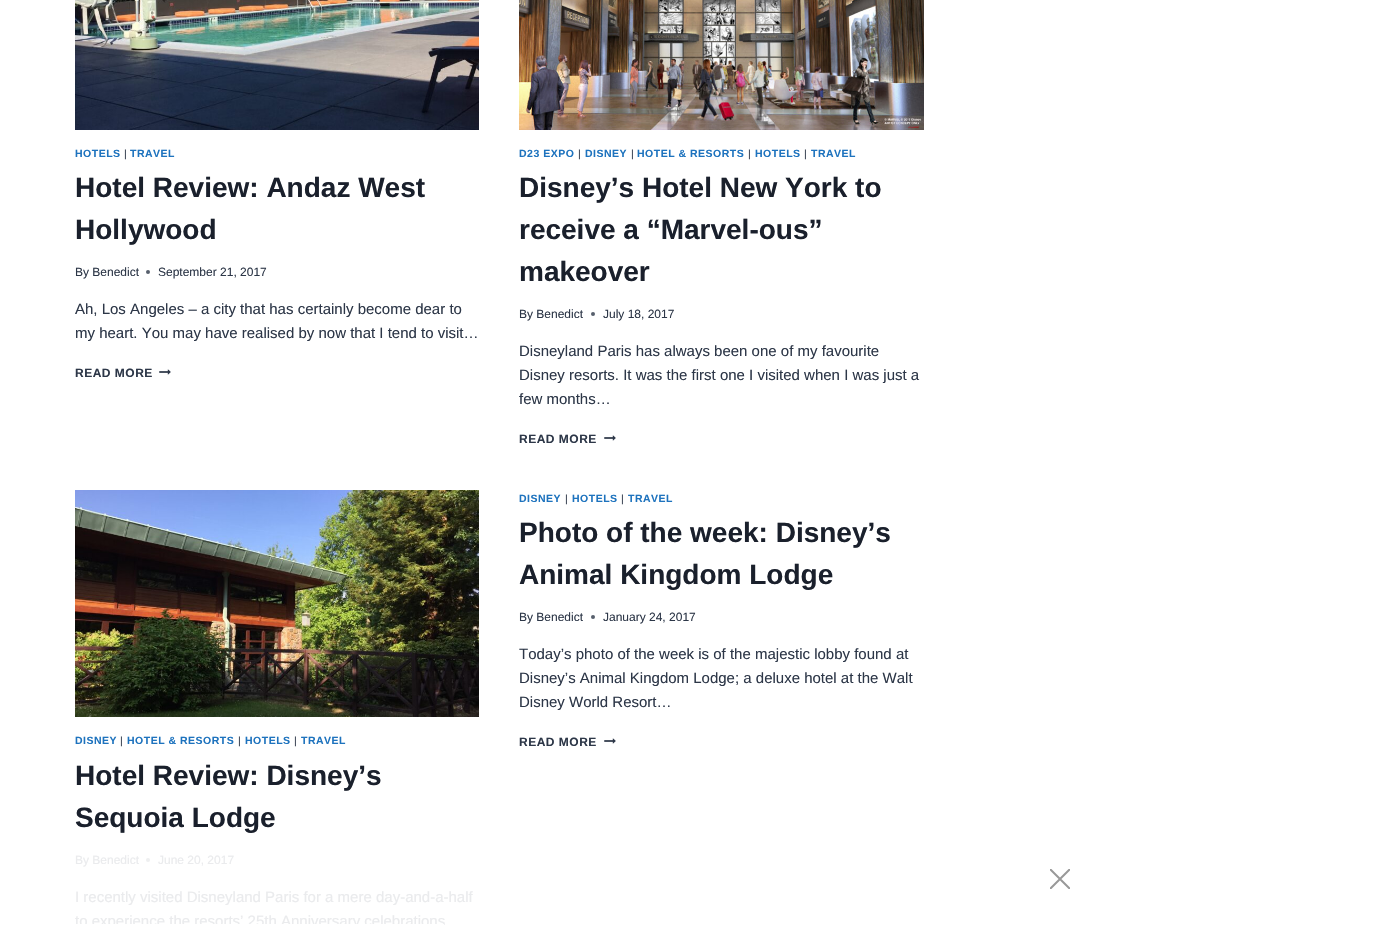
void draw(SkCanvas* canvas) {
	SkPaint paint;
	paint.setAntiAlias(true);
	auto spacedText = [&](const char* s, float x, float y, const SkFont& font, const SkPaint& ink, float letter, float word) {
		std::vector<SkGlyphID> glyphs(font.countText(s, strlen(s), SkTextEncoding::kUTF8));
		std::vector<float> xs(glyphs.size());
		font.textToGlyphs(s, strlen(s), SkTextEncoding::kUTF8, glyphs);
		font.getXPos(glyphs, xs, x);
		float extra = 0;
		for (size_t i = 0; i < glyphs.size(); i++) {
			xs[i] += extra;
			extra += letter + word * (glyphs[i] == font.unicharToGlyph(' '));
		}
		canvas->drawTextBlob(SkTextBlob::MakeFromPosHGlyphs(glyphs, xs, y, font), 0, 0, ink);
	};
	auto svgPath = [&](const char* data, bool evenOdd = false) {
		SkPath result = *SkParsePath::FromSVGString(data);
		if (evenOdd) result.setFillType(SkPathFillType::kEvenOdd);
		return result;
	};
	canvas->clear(0xffffffff);
	canvas->drawImageRect(SkImages::DeferredFromEncodedData(SkData::MakeFromFileName("img1.png")), SkRect::MakeXYWH(75, 0, 404, 130), SkSamplingOptions());
	SkFont f1(fontMgr->matchFamilyStyle("Liberation Sans", SkFontStyle::Bold()), 10.5);
	f1.setSubpixel(true);
	paint.setColor(0xff1e73be);
	spacedText("HOTELS", 75, 157, f1, paint, 0.5, 0);
	SkFont f2(fontMgr->matchFamilyStyle("Liberation Sans", SkFontStyle::Normal()), 10.5);
	f2.setSubpixel(true);
	paint.setColor(0xff2d3748);
	spacedText("|", 124, 157, f2, paint, 0.5, 0);
	paint.setColor(0xff1e73be);
	spacedText("TRAVEL", 130, 157, f1, paint, 0.5, 0);
	SkFont f3(fontMgr->matchFamilyStyle("Liberation Sans", SkFontStyle::Bold()), 28);
	f3.setSubpixel(true);
	paint.setColor(0xff1a202c);
	canvas->drawString("Hotel Review: Andaz West", 75, 197, f3, paint);
	canvas->drawString("Hollywood", 75, 239, f3, paint);
	SkFont f4(fontMgr->matchFamilyStyle("Liberation Sans", SkFontStyle::Normal()), 12);
	f4.setSubpixel(true);
	paint.setColor(0xff2d3748);
	canvas->drawString("By Benedict", 75, 276, f4, paint);
	paint.setColor(0xff575f6d);
	canvas->drawCircle(148, 272, 2, paint);
	paint.setColor(0xff2d3748);
	canvas->drawString("September 21, 2017", 158, 276, f4, paint);
	SkFont f5(fontMgr->matchFamilyStyle("Liberation Sans", SkFontStyle::Normal()), 15);
	f5.setSubpixel(true);
	canvas->drawString("Ah, Los Angeles – a city that has certainly become dear to", 75, 314, f5, paint);
	canvas->drawString("my heart. You may have realised by now that I tend to visit…", 75, 338, f5, paint);
	SkFont f6(fontMgr->matchFamilyStyle("Liberation Sans", SkFontStyle::Bold()), 12);
	f6.setSubpixel(true);
	spacedText("READ MORE", 75, 377, f6, paint, 0.5, 0);
	canvas->drawImageRect(SkImages::DeferredFromEncodedData(SkData::MakeFromFileName("img2.png")), SkRect::MakeXYWH(159, 369, 12, 6), SkSamplingOptions());
	canvas->drawImageRect(SkImages::DeferredFromEncodedData(SkData::MakeFromFileName("img3.png")), SkRect::MakeXYWH(519, 0, 405, 130), SkSamplingOptions());
	paint.setColor(0xff1e73be);
	spacedText("D23 EXPO", 519, 157, f1, paint, 0.5, 0);
	paint.setColor(0xff2d3748);
	spacedText("|", 578, 157, f2, paint, 0.5, 0);
	paint.setColor(0xff1e73be);
	spacedText("DISNEY", 585, 157, f1, paint, 0.5, 0);
	paint.setColor(0xff2d3748);
	spacedText("|", 631, 157, f2, paint, 0.5, 0);
	paint.setColor(0xff1e73be);
	spacedText("HOTEL & RESORTS", 637, 157, f1, paint, 0.5, 0);
	paint.setColor(0xff2d3748);
	spacedText("|", 748, 157, f2, paint, 0.5, 0);
	paint.setColor(0xff1e73be);
	spacedText("HOTELS", 755, 157, f1, paint, 0.5, 0);
	paint.setColor(0xff2d3748);
	spacedText("|", 804, 157, f2, paint, 0.5, 0);
	paint.setColor(0xff1e73be);
	spacedText("TRAVEL", 811, 157, f1, paint, 0.5, 0);
	paint.setColor(0xff1a202c);
	canvas->drawString("Disney’s Hotel New York to", 519, 197, f3, paint);
	canvas->drawString("receive a “Marvel-ous”", 519, 239, f3, paint);
	canvas->drawString("makeover", 519, 281, f3, paint);
	paint.setColor(0xff2d3748);
	canvas->drawString("By Benedict", 519, 318, f4, paint);
	paint.setColor(0xff575f6d);
	canvas->drawCircle(593, 314, 2, paint);
	paint.setColor(0xff2d3748);
	canvas->drawString("July 18, 2017", 603, 318, f4, paint);
	canvas->drawString("Disneyland Paris has always been one of my favourite", 519, 356, f5, paint);
	canvas->drawString("Disney resorts. It was the first one I visited when I was just a", 519, 380, f5, paint);
	canvas->drawString("few months…", 519, 404, f5, paint);
	spacedText("READ MORE", 519, 443, f6, paint, 0.5, 0);
	canvas->drawImageRect(SkImages::DeferredFromEncodedData(SkData::MakeFromFileName("img2.png")), SkRect::MakeXYWH(604, 435, 12, 6), SkSamplingOptions());
	paint.setColor(0xff1e73be);
	spacedText("DISNEY", 519, 502, f1, paint, 0.5, 0);
	paint.setColor(0xff2d3748);
	spacedText("|", 565, 502, f2, paint, 0.5, 0);
	paint.setColor(0xff1e73be);
	spacedText("HOTELS", 572, 502, f1, paint, 0.5, 0);
	paint.setColor(0xff2d3748);
	spacedText("|", 621, 502, f2, paint, 0.5, 0);
	paint.setColor(0xff1e73be);
	spacedText("TRAVEL", 628, 502, f1, paint, 0.5, 0);
	paint.setColor(0xff1a202c);
	canvas->drawString("Photo of the week: Disney’s", 519, 542, f3, paint);
	canvas->drawString("Animal Kingdom Lodge", 519, 584, f3, paint);
	paint.setColor(0xff2d3748);
	canvas->drawString("By Benedict", 519, 621, f4, paint);
	paint.setColor(0xff575f6d);
	canvas->drawCircle(593, 617, 2, paint);
	paint.setColor(0xff2d3748);
	canvas->drawString("January 24, 2017", 603, 621, f4, paint);
	canvas->drawString("Today’s photo of the week is of the majestic lobby found at", 519, 659, f5, paint);
	canvas->drawString("Disney’s Animal Kingdom Lodge; a deluxe hotel at the Walt", 519, 683, f5, paint);
	canvas->drawString("Disney World Resort…", 519, 707, f5, paint);
	spacedText("READ MORE", 519, 746, f6, paint, 0.5, 0);
	canvas->drawImageRect(SkImages::DeferredFromEncodedData(SkData::MakeFromFileName("img2.png")), SkRect::MakeXYWH(604, 738, 12, 6), SkSamplingOptions());
	canvas->drawImageRect(SkImages::DeferredFromEncodedData(SkData::MakeFromFileName("img4.png")), SkRect::MakeXYWH(75, 490, 404, 227), SkSamplingOptions());
	paint.setColor(0xff1e73be);
	spacedText("DISNEY", 75, 744, f1, paint, 0.5, 0);
	paint.setColor(0xff2d3748);
	spacedText("|", 120, 744, f2, paint, 0.5, 0);
	paint.setColor(0xff1e73be);
	spacedText("HOTEL & RESORTS", 127, 744, f1, paint, 0.5, 0);
	paint.setColor(0xff2d3748);
	spacedText("|", 238, 744, f2, paint, 0.5, 0);
	paint.setColor(0xff1e73be);
	spacedText("HOTELS", 245, 744, f1, paint, 0.5, 0);
	paint.setColor(0xff2d3748);
	spacedText("|", 294, 744, f2, paint, 0.5, 0);
	paint.setColor(0xff1e73be);
	spacedText("TRAVEL", 301, 744, f1, paint, 0.5, 0);
	paint.setColor(0xff1a202c);
	canvas->drawString("Hotel Review: Disney’s", 75, 785, f3, paint);
	canvas->drawString("Sequoia Lodge", 75, 827, f3, paint);
	paint.setColor(0xffeaebed);
	canvas->drawString("By Benedict", 75, 864, f4, paint);
	paint.setColor(0xffeeeff0);
	canvas->drawCircle(148, 860, 2, paint);
	paint.setColor(0xffeaebed);
	canvas->drawString("June 20, 2017", 158, 864, f4, paint);
	canvas->drawString("I recently visited Disneyland Paris for a mere day-and-a-half", 75, 902, f5, paint);
	canvas->drawString("to experience the resorts’ 25th Anniversary celebrations", 75, 926, f5, paint);
	paint.setColor(0xffffffff);
	canvas->drawRect(SkRect::MakeXYWH(75, 924, 369, 1), paint);
	canvas->save();
	canvas->clipRect(SkRect::MakeXYWH(1050, 869, 20, 20));
	paint.setStroke(true);
	paint.setStrokeWidth(2);
	paint.setColor(0xff999999);
	canvas->drawPath(svgPath("M1050 889L1070 869M1050 869L1070 889"), paint);
	canvas->restore();
}
